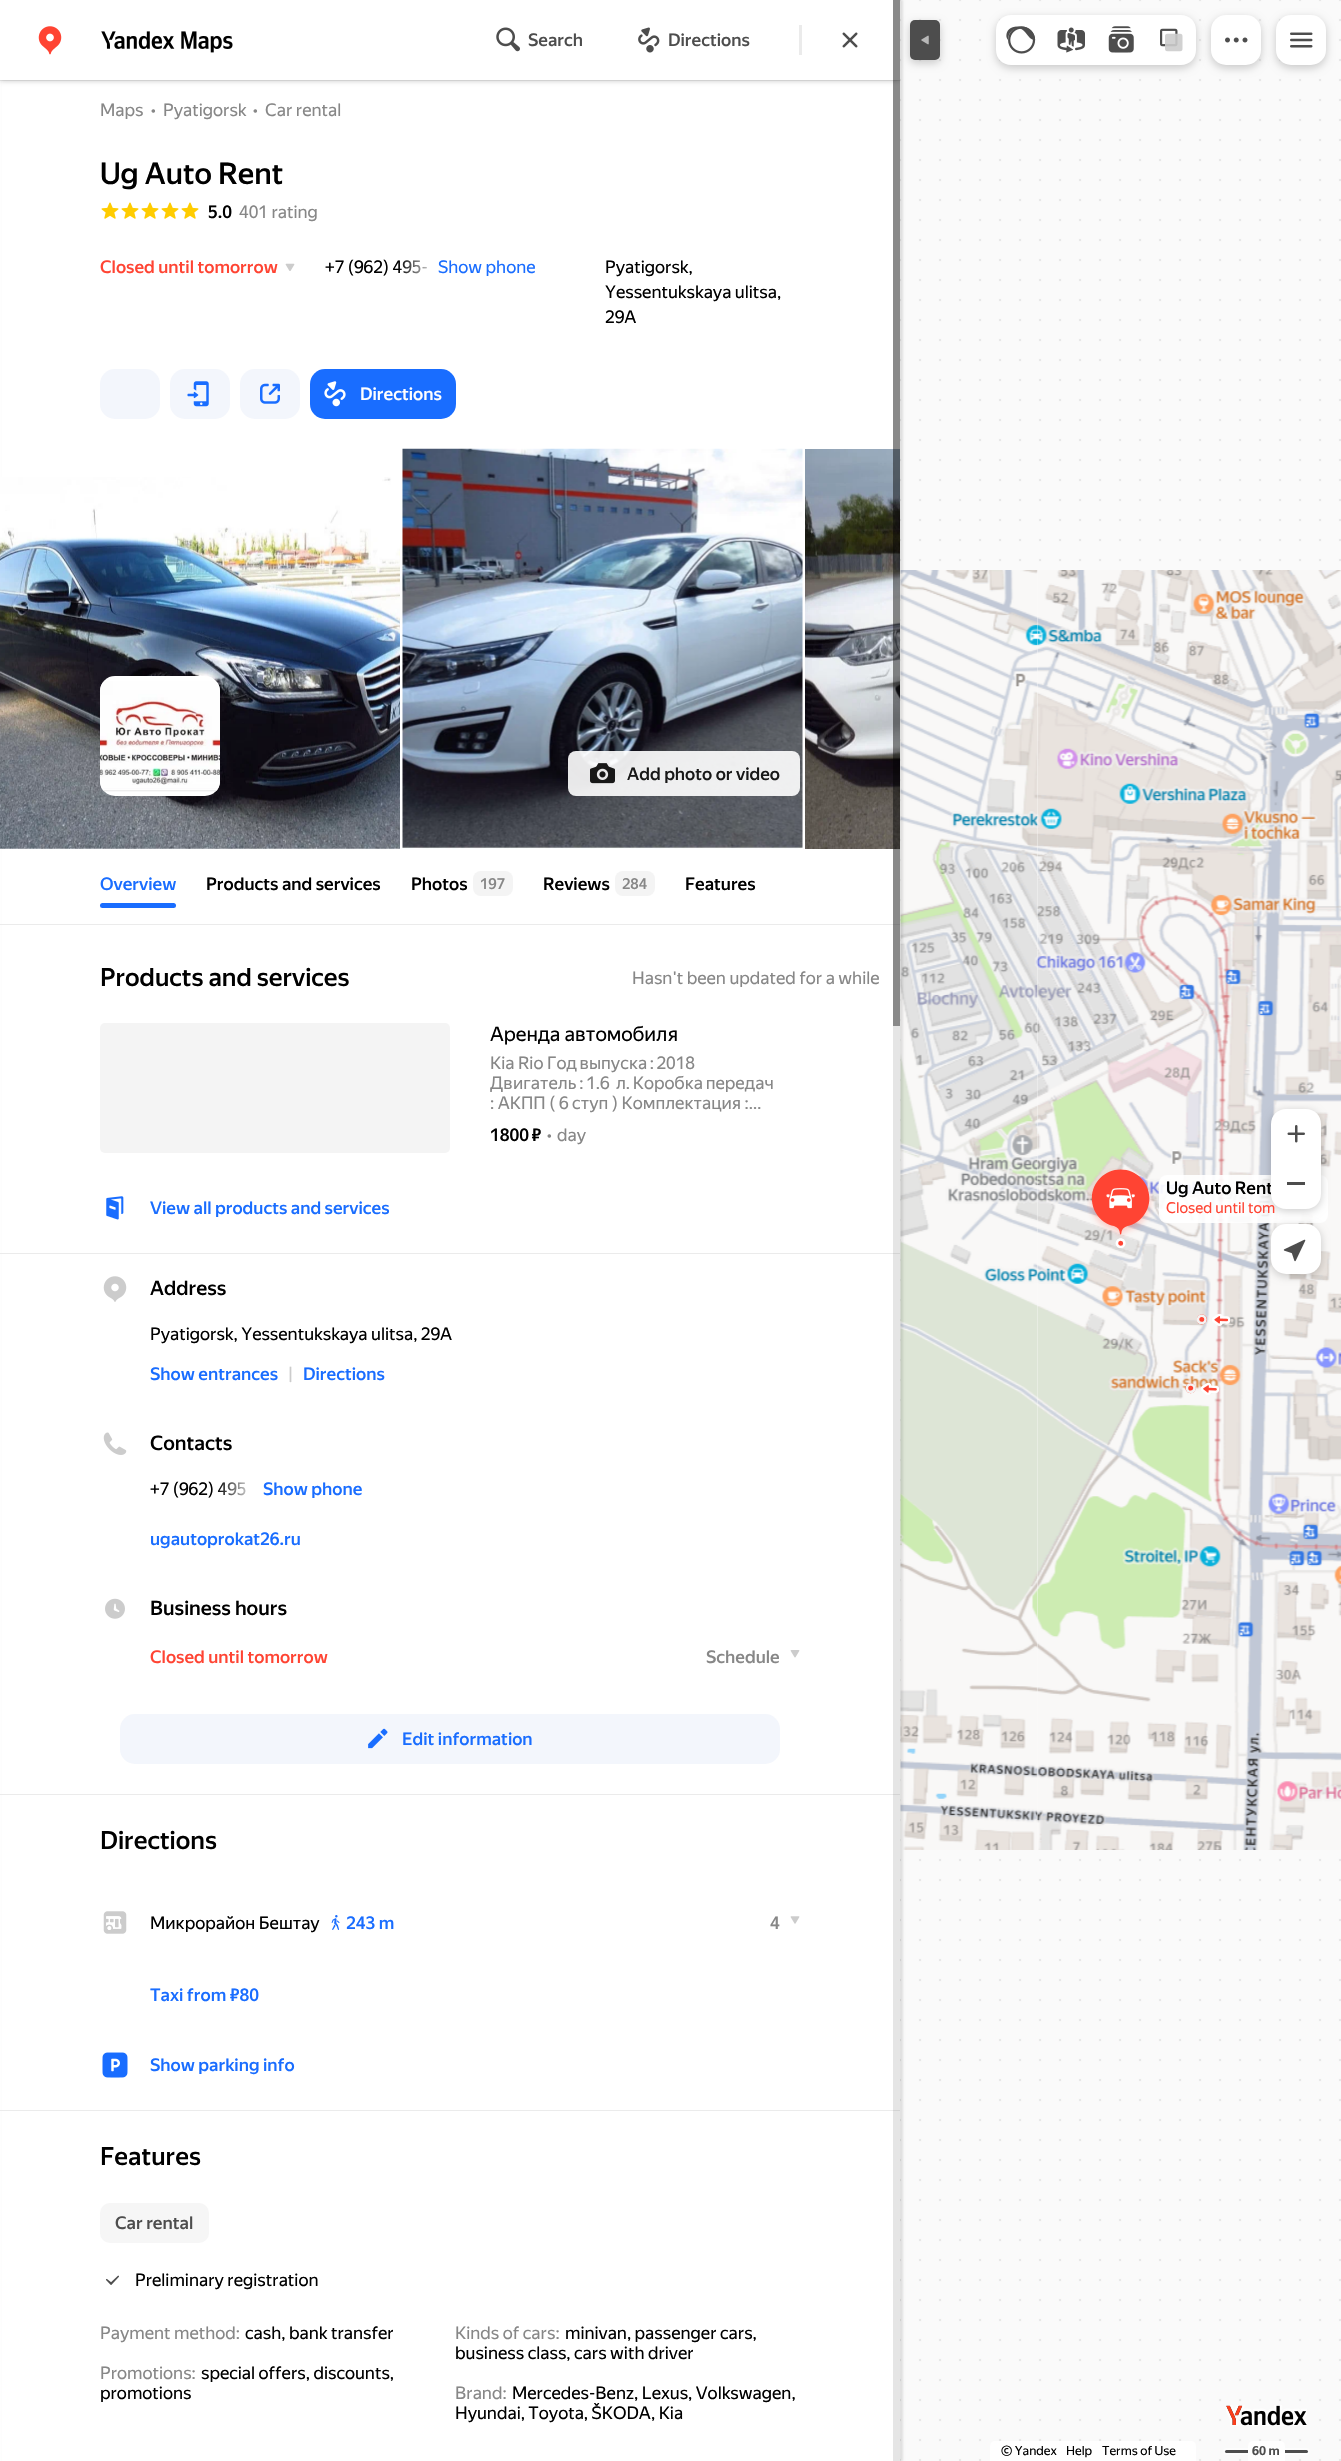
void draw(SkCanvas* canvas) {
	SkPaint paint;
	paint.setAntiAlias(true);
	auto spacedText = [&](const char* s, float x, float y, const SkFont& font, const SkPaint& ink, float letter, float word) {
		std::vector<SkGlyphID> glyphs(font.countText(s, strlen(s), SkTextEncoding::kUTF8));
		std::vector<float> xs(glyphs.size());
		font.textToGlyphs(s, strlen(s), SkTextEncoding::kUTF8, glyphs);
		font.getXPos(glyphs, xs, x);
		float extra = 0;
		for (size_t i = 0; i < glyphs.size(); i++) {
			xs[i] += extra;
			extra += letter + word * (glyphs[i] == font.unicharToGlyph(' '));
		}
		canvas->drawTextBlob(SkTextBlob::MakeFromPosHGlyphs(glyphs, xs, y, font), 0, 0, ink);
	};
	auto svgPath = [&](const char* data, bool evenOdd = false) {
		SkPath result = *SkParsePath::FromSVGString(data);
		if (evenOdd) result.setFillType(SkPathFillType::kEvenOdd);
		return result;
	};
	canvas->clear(0xffffffff);
	canvas->drawImageRect(SkImages::DeferredFromEncodedData(SkData::MakeFromFileName("img1.png")), SkRect::MakeXYWH(900, 0, 441, 2461), SkSamplingOptions());
	canvas->drawImageRect(SkImages::DeferredFromEncodedData(SkData::MakeFromFileName("img39.png")), SkRect::MakeXYWH(1037, 570, 304, 320), SkSamplingOptions());
	canvas->drawImageRect(SkImages::DeferredFromEncodedData(SkData::MakeFromFileName("img38.png")), SkRect::MakeXYWH(900, 570, 138, 320), SkSamplingOptions());
	canvas->drawImageRect(SkImages::DeferredFromEncodedData(SkData::MakeFromFileName("img41.png")), SkRect::MakeXYWH(1037, 890, 304, 320), SkSamplingOptions());
	canvas->drawImageRect(SkImages::DeferredFromEncodedData(SkData::MakeFromFileName("img40.png")), SkRect::MakeXYWH(900, 890, 138, 320), SkSamplingOptions());
	canvas->drawImageRect(SkImages::DeferredFromEncodedData(SkData::MakeFromFileName("img43.png")), SkRect::MakeXYWH(1037, 1210, 304, 320), SkSamplingOptions());
	canvas->drawImageRect(SkImages::DeferredFromEncodedData(SkData::MakeFromFileName("img42.png")), SkRect::MakeXYWH(900, 1210, 138, 320), SkSamplingOptions());
	canvas->drawImageRect(SkImages::DeferredFromEncodedData(SkData::MakeFromFileName("img45.png")), SkRect::MakeXYWH(1037, 1530, 304, 320), SkSamplingOptions());
	canvas->drawImageRect(SkImages::DeferredFromEncodedData(SkData::MakeFromFileName("img44.png")), SkRect::MakeXYWH(900, 1530, 138, 320), SkSamplingOptions());
	paint.setColor(0x1a000000);
	paint.setMaskFilter(SkMaskFilter::MakeBlur(kNormal_SkBlurStyle, 1));
	canvas->drawRect(SkRect::MakeXYWH(3, 0, 900, 2461), paint);
	paint.setMaskFilter(nullptr);
	paint.setColor(0xffffffff);
	canvas->drawRect(SkRect::MakeXYWH(2, 81, 898, 2380), paint);
	paint.setColor(0xffebebeb);
	canvas->drawRect(SkRect::MakeXYWH(0, 80, 900, 1), paint);
	canvas->save();
	canvas->clipRect(SkRect::MakeXYWH(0, 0, 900, 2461));
	paint.setColor(0x33000000);
	paint.setMaskFilter(SkMaskFilter::MakeBlur(kNormal_SkBlurStyle, 2.5));
	canvas->drawRect(SkRect::MakeXYWH(0, 76, 900, 5), paint);
	paint.setMaskFilter(nullptr);
	canvas->restore();
	paint.setMaskFilter(SkMaskFilter::MakeBlur(kNormal_SkBlurStyle, 4));
	canvas->drawRoundRect(SkRect::MakeXYWH(910, 23, 30, 40), 5, 5, paint);
	paint.setMaskFilter(nullptr);
	paint.setColor(0xffffffff);
	canvas->drawRect(SkRect::MakeXYWH(0, 0, 900, 80), paint);
	canvas->drawImageRect(SkImages::DeferredFromEncodedData(SkData::MakeFromFileName("img2.png")), SkRect::MakeXYWH(38, 26, 24, 29), SkSamplingOptions());
	canvas->drawImageRect(SkImages::DeferredFromEncodedData(SkData::MakeFromFileName("img3.png")), SkRect::MakeXYWH(101, 31, 132, 22), SkSamplingOptions());
	canvas->drawImageRect(SkImages::DeferredFromEncodedData(SkData::MakeFromFileName("img4.png")), SkRect::MakeXYWH(496, 27, 24, 25), SkSamplingOptions());
	SkFont f1(fontMgr->matchFamilyStyle("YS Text", SkFontStyle(500, SkFontStyle::kNormal_Width, SkFontStyle::kUpright_Slant)), 17.5);
	f1.setSubpixel(true);
	paint.setColor(0xff4d4d4d);
	canvas->drawString("Search", 528, 46, f1, paint);
	canvas->drawImageRect(SkImages::DeferredFromEncodedData(SkData::MakeFromFileName("img5.png")), SkRect::MakeXYWH(638, 27, 22, 26), SkSamplingOptions());
	canvas->drawString("Directions", 668, 46, f1, paint);
	paint.setColor(0xffebebeb);
	canvas->drawRect(SkRect::MakeXYWH(799, 25, 3, 30), paint);
	canvas->drawImageRect(SkImages::DeferredFromEncodedData(SkData::MakeFromFileName("img6.png")), SkRect::MakeXYWH(842, 32, 16, 16), SkSamplingOptions());
	SkFont f2(fontMgr->matchFamilyStyle("YS Text", SkFontStyle::Normal()), 17.5);
	f2.setSubpixel(true);
	paint.setColor(0xff878787);
	canvas->drawString("Maps", 100, 116, f2, paint);
	canvas->drawString("•", 151, 116, f2, paint);
	canvas->drawString("Pyatigorsk", 163, 116, f2, paint);
	canvas->drawString("•", 253, 116, f2, paint);
	canvas->drawString("Car rental", 265, 116, f2, paint);
	SkFont f3(fontMgr->matchFamilyStyle("YS Text", SkFontStyle(500, SkFontStyle::kNormal_Width, SkFontStyle::kUpright_Slant)), 30);
	f3.setSubpixel(true);
	paint.setColor(0xff000000);
	canvas->drawString("Ug Auto Rent", 100, 184, f3, paint);
	canvas->drawImageRect(SkImages::DeferredFromEncodedData(SkData::MakeFromFileName("img7.png")), SkRect::MakeXYWH(101, 202, 18, 17), SkSamplingOptions());
	canvas->drawImageRect(SkImages::DeferredFromEncodedData(SkData::MakeFromFileName("img7.png")), SkRect::MakeXYWH(121, 202, 18, 17), SkSamplingOptions());
	canvas->drawImageRect(SkImages::DeferredFromEncodedData(SkData::MakeFromFileName("img7.png")), SkRect::MakeXYWH(141, 202, 18, 17), SkSamplingOptions());
	canvas->drawImageRect(SkImages::DeferredFromEncodedData(SkData::MakeFromFileName("img7.png")), SkRect::MakeXYWH(161, 202, 18, 17), SkSamplingOptions());
	canvas->drawImageRect(SkImages::DeferredFromEncodedData(SkData::MakeFromFileName("img7.png")), SkRect::MakeXYWH(181, 202, 18, 17), SkSamplingOptions());
	canvas->drawString("5.0", 208, 218, f1, paint);
	paint.setColor(0xff878787);
	canvas->drawString("401 rating", 239, 218, f2, paint);
	paint.setColor(0xffff4433);
	canvas->drawString("Closed until tomorrow", 100, 273, f1, paint);
	canvas->drawImageRect(SkImages::DeferredFromEncodedData(SkData::MakeFromFileName("img8.png")), SkRect::MakeXYWH(285, 263, 10, 8), SkSamplingOptions());
	paint.setColor(0xff000000);
	canvas->drawString("+7 (962) 495-", 325, 273, f2, paint);
	{
		const SkColor colors[] = {0x00ffffff, 0xffffffff};
		const float stops[] = {0, 1};
		const SkPoint ends[] = {{398, 266}, {438, 266}};
		paint.setShader(SkGradientShader::MakeLinear(ends, colors, stops, 2, SkTileMode::kClamp));
		paint.setAlpha(255);
	}
	canvas->drawRect(SkRect::MakeXYWH(399, 260, 28, 14), paint);
	paint.setShader(nullptr);
	paint.setColor(0xff196dff);
	canvas->drawString("Show phone", 438, 273, f2, paint);
	paint.setColor(0xff000000);
	canvas->drawString("Pyatigorsk,", 605, 273, f2, paint);
	canvas->drawString("Yessentukskaya ulitsa,", 605, 298, f2, paint);
	canvas->drawString("29А", 605, 323, f2, paint);
	paint.setColor(0xfff3f6fc);
	canvas->drawRoundRect(SkRect::MakeXYWH(100, 369, 60, 50), 15, 15, paint);
	canvas->drawRoundRect(SkRect::MakeXYWH(170, 369, 60, 50), 15, 15, paint);
	canvas->drawImageRect(SkImages::DeferredFromEncodedData(SkData::MakeFromFileName("img9.png")), SkRect::MakeXYWH(187, 381, 22, 26), SkSamplingOptions());
	canvas->drawRoundRect(SkRect::MakeXYWH(240, 369, 60, 50), 15, 15, paint);
	canvas->drawImageRect(SkImages::DeferredFromEncodedData(SkData::MakeFromFileName("img10.png")), SkRect::MakeXYWH(260, 383, 20, 21), SkSamplingOptions());
	paint.setColor(0xff196dff);
	canvas->drawRoundRect(SkRect::MakeXYWH(310, 369, 146, 50), 15, 15, paint);
	canvas->drawImageRect(SkImages::DeferredFromEncodedData(SkData::MakeFromFileName("img11.png")), SkRect::MakeXYWH(324, 381, 22, 26), SkSamplingOptions());
	paint.setColor(0xffffffff);
	canvas->drawString("Directions", 360, 400, f1, paint);
	canvas->drawImageRect(SkImages::DeferredFromEncodedData(SkData::MakeFromFileName("img12.png")), SkRect::MakeXYWH(0, 477, 400, 372), SkSamplingOptions());
	canvas->drawImageRect(SkImages::DeferredFromEncodedData(SkData::MakeFromFileName("img13.png")), SkRect::MakeXYWH(402, 448, 401, 401), SkSamplingOptions());
	canvas->drawImageRect(SkImages::DeferredFromEncodedData(SkData::MakeFromFileName("img14.png")), SkRect::MakeXYWH(805, 449, 95, 400), SkSamplingOptions());
	canvas->drawRoundRect(SkRect::MakeXYWH(100, 676, 120, 120), 15, 15, paint);
	canvas->drawImageRect(SkImages::DeferredFromEncodedData(SkData::MakeFromFileName("img15.png")), SkRect::MakeXYWH(100, 681, 120, 111), SkSamplingOptions());
	paint.setColor(0xe6ffffff);
	canvas->drawRoundRect(SkRect::MakeXYWH(568, 751, 232, 45), 8, 8, paint);
	canvas->drawImageRect(SkImages::DeferredFromEncodedData(SkData::MakeFromFileName("img16.png")), SkRect::MakeXYWH(590, 763, 25, 21), SkSamplingOptions());
	paint.setColor(0xff181818);
	canvas->drawString("Add photo or video", 627, 780, f1, paint);
	paint.setColor(0xff196dff);
	canvas->drawString("Overview", 100, 890, f1, paint);
	paint.setColor(0xff000000);
	canvas->drawString("Products and services", 206, 890, f1, paint);
	canvas->drawString("Photos", 411, 890, f1, paint);
	paint.setColor(0xfff4f4f4);
	canvas->drawRoundRect(SkRect::MakeXYWH(473, 871, 40, 25), 8, 8, paint);
	SkFont f4(fontMgr->matchFamilyStyle("YS Text", SkFontStyle(500, SkFontStyle::kNormal_Width, SkFontStyle::kUpright_Slant)), 15);
	f4.setSubpixel(true);
	paint.setColor(0xff878787);
	canvas->drawString("197", 480, 889, f4, paint);
	paint.setColor(0xff000000);
	canvas->drawString("Reviews", 543, 890, f1, paint);
	paint.setColor(0xfff4f4f4);
	canvas->drawRoundRect(SkRect::MakeXYWH(615, 871, 40, 25), 8, 8, paint);
	paint.setColor(0xff878787);
	canvas->drawString("284", 622, 889, f4, paint);
	paint.setColor(0xff000000);
	canvas->drawString("Features", 685, 890, f1, paint);
	paint.setColor(0xff196dff);
	canvas->drawRoundRect(SkRect::MakeXYWH(100, 903, 76, 5), 2.5, 2.5, paint);
	paint.setColor(0xffebebeb);
	canvas->drawRect(SkRect::MakeXYWH(0, 924, 900, 1), paint);
	SkFont f5(fontMgr->matchFamilyStyle("YS Text", SkFontStyle(500, SkFontStyle::kNormal_Width, SkFontStyle::kUpright_Slant)), 25);
	f5.setSubpixel(true);
	paint.setColor(0xff000000);
	canvas->drawString("Products and services", 100, 986, f5, paint);
	paint.setColor(0xff878787);
	canvas->drawString("Hasn't been updated for a while", 632, 984, f2, paint);
	paint.setColor(0xfff4f4f4);
	canvas->drawRoundRect(SkRect::MakeXYWH(100, 1023, 350, 130), 5, 5, paint);
	SkFont f6(fontMgr->matchFamilyStyle("YS Text", SkFontStyle::Normal()), 20);
	f6.setSubpixel(true);
	paint.setColor(0xff000000);
	canvas->drawString("Аренда автомобиля", 490, 1041, f6, paint);
	paint.setColor(0xff878787);
	canvas->drawString("Kia Rio", 490, 1069, f2, paint);
	spacedText("Год выпуска : 2018", 547, 1069, f2, paint, 0, -1);
	spacedText("Двигатель : 1.6", 490, 1089, f2, paint, 0, -0.75);
	spacedText("л. Коробка передач", 616, 1089, f2, paint, 0, -0.75);
	canvas->drawString(": АКПП ( 6 ступ ) Комплектация :…", 490, 1109, f2, paint);
	paint.setColor(0xff000000);
	spacedText("1800 ₽", 490, 1141, f1, paint, 0, -1);
	paint.setColor(0xff878787);
	canvas->drawString("•", 547, 1141, f2, paint);
	canvas->drawString("day", 557, 1141, f2, paint);
	canvas->drawImageRect(SkImages::DeferredFromEncodedData(SkData::MakeFromFileName("img17.png")), SkRect::MakeXYWH(106, 1196, 18, 24), SkSamplingOptions());
	paint.setColor(0xff196dff);
	canvas->drawString("View all products and services", 150, 1214, f1, paint);
	paint.setColor(0xffebebeb);
	canvas->drawRect(SkRect::MakeXYWH(0, 1253, 900, 1), paint);
	canvas->drawImageRect(SkImages::DeferredFromEncodedData(SkData::MakeFromFileName("img18.png")), SkRect::MakeXYWH(103, 1276, 24, 26), SkSamplingOptions());
	SkFont f7(fontMgr->matchFamilyStyle("YS Text", SkFontStyle(500, SkFontStyle::kNormal_Width, SkFontStyle::kUpright_Slant)), 20);
	f7.setSubpixel(true);
	paint.setColor(0xff000000);
	canvas->drawString("Address", 150, 1295, f7, paint);
	canvas->drawString("Pyatigorsk, Yessentukskaya ulitsa, 29А", 150, 1340, f2, paint);
	paint.setColor(0xff196dff);
	canvas->drawString("Show entrances", 150, 1380, f1, paint);
	paint.setColor(0xffcccccc);
	canvas->drawString("|", 288, 1380, f2, paint);
	paint.setColor(0xff196dff);
	canvas->drawString("Directions", 303, 1380, f1, paint);
	canvas->drawImageRect(SkImages::DeferredFromEncodedData(SkData::MakeFromFileName("img19.png")), SkRect::MakeXYWH(103, 1432, 24, 23), SkSamplingOptions());
	paint.setColor(0xff000000);
	canvas->drawString("Contacts", 150, 1450, f7, paint);
	canvas->drawString("+7 (962) 495", 150, 1495, f2, paint);
	{
		const SkColor colors[] = {0x00ffffff, 0xffffffff};
		const float stops[] = {0, 1};
		const SkPoint ends[] = {{216, 1489}, {256, 1489}};
		paint.setShader(SkGradientShader::MakeLinear(ends, colors, stops, 2, SkTileMode::kClamp));
		paint.setAlpha(255);
	}
	canvas->drawRect(SkRect::MakeXYWH(218, 1482, 28, 14), paint);
	paint.setShader(nullptr);
	paint.setColor(0xff196dff);
	canvas->drawString("Show phone", 263, 1495, f1, paint);
	canvas->drawString("ugautoprokat26.ru", 150, 1545, f1, paint);
	canvas->drawImageRect(SkImages::DeferredFromEncodedData(SkData::MakeFromFileName("img20.png")), SkRect::MakeXYWH(105, 1598, 20, 21), SkSamplingOptions());
	paint.setColor(0xff000000);
	canvas->drawString("Business hours", 150, 1615, f7, paint);
	paint.setColor(0xffff4433);
	canvas->drawString("Closed until tomorrow", 150, 1663, f1, paint);
	paint.setColor(0xff878787);
	canvas->drawString("Schedule", 706, 1663, f1, paint);
	canvas->drawImageRect(SkImages::DeferredFromEncodedData(SkData::MakeFromFileName("img21.png")), SkRect::MakeXYWH(790, 1650, 10, 8), SkSamplingOptions());
	paint.setColor(0xfff3f6fc);
	canvas->drawRoundRect(SkRect::MakeXYWH(120, 1714, 660, 50), 15, 15, paint);
	canvas->drawImageRect(SkImages::DeferredFromEncodedData(SkData::MakeFromFileName("img22.png")), SkRect::MakeXYWH(368, 1728, 20, 21), SkSamplingOptions());
	paint.setColor(0xff196dff);
	canvas->drawString("Edit information", 402, 1745, f1, paint);
	paint.setColor(0xffebebeb);
	canvas->drawRect(SkRect::MakeXYWH(0, 1794, 900, 1), paint);
	paint.setColor(0xff000000);
	canvas->drawString("Directions", 100, 1849, f5, paint);
	canvas->drawImageRect(SkImages::DeferredFromEncodedData(SkData::MakeFromFileName("img23.png")), SkRect::MakeXYWH(103, 1911, 24, 23), SkSamplingOptions());
	canvas->drawString("Микрорайон Бештау", 150, 1929, f2, paint);
	canvas->drawImageRect(SkImages::DeferredFromEncodedData(SkData::MakeFromFileName("img24.png")), SkRect::MakeXYWH(331, 1915, 9, 15), SkSamplingOptions());
	paint.setColor(0xff196dff);
	canvas->drawString("243 m", 346, 1929, f1, paint);
	paint.setColor(0xff878787);
	canvas->drawString("4", 770, 1929, f1, paint);
	canvas->drawImageRect(SkImages::DeferredFromEncodedData(SkData::MakeFromFileName("img25.png")), SkRect::MakeXYWH(790, 1916, 10, 8), SkSamplingOptions());
	paint.setColor(0xff196dff);
	canvas->drawString("Taxi from ₽80", 150, 2001, f1, paint);
	canvas->drawImageRect(SkImages::DeferredFromEncodedData(SkData::MakeFromFileName("img26.png")), SkRect::MakeXYWH(102, 2052, 26, 26), SkSamplingOptions());
	canvas->drawString("Show parking info", 150, 2071, f1, paint);
	paint.setColor(0xffebebeb);
	canvas->drawRect(SkRect::MakeXYWH(0, 2110, 900, 1), paint);
	paint.setColor(0xff000000);
	canvas->drawString("Features", 100, 2165, f5, paint);
	paint.setColor(0xfff6f6f6);
	canvas->drawRoundRect(SkRect::MakeXYWH(100, 2203, 109, 40), 10, 10, paint);
	paint.setColor(0xff4d4d4d);
	canvas->drawString("Car rental", 115, 2229, f1, paint);
	canvas->drawImageRect(SkImages::DeferredFromEncodedData(SkData::MakeFromFileName("img27.png")), SkRect::MakeXYWH(106, 2275, 13, 10), SkSamplingOptions());
	paint.setColor(0xff000000);
	canvas->drawString("Preliminary registration", 135, 2286, f2, paint);
	paint.setColor(0xff878787);
	canvas->drawString("Payment method:", 100, 2339, f2, paint);
	paint.setColor(0xff000000);
	canvas->drawString("cash, bank transfer", 245, 2339, f2, paint);
	paint.setColor(0xff878787);
	canvas->drawString("Kinds of cars:", 455, 2339, f2, paint);
	paint.setColor(0xff000000);
	canvas->drawString("minivan, passenger cars,", 565, 2339, f2, paint);
	canvas->drawString("business class, cars with driver", 455, 2359, f2, paint);
	paint.setColor(0xff878787);
	canvas->drawString("Promotions:", 100, 2379, f2, paint);
	paint.setColor(0xff000000);
	canvas->drawString("special offers, discounts,", 201, 2379, f2, paint);
	canvas->drawString("promotions", 100, 2399, f2, paint);
	paint.setColor(0xff878787);
	canvas->drawString("Brand:", 455, 2399, f2, paint);
	paint.setColor(0xff000000);
	canvas->drawString("Mercedes-Benz, Lexus, Volkswagen,", 512, 2399, f2, paint);
	canvas->drawString("Hyundai, Toyota, ŠKODA, Kia", 455, 2419, f2, paint);
	paint.setColor(0x1a000000);
	canvas->drawRect(SkRect::MakeXYWH(893, 0, 7, 2461), paint);
	paint.setColor(0x66000000);
	canvas->drawRect(SkRect::MakeXYWH(893, 0, 7, 1026), paint);
	paint.setColor(0xff4d4d4d);
	canvas->drawRoundRect(SkRect::MakeXYWH(910, 20, 30, 40), 5, 5, paint);
	canvas->drawImageRect(SkImages::DeferredFromEncodedData(SkData::MakeFromFileName("img28.png")), SkRect::MakeXYWH(921, 35, 8, 10), SkSamplingOptions());
	paint.setColor(0x33000000);
	paint.setMaskFilter(SkMaskFilter::MakeBlur(kNormal_SkBlurStyle, 4));
	canvas->drawRoundRect(SkRect::MakeXYWH(996, 18, 200, 50), 15, 15, paint);
	paint.setMaskFilter(nullptr);
	paint.setColor(0xffffffff);
	canvas->drawPath(svgPath("M1011 15H1046V65H1011C1002.5 65 996 58.5 996 50V30C996 21.5 1002.5 15 1011 15Z"), paint);
	canvas->drawImageRect(SkImages::DeferredFromEncodedData(SkData::MakeFromFileName("img29.png")), SkRect::MakeXYWH(1006, 26, 30, 28), SkSamplingOptions());
	canvas->drawRect(SkRect::MakeXYWH(1046, 15, 100, 50), paint);
	canvas->drawImageRect(SkImages::DeferredFromEncodedData(SkData::MakeFromFileName("img30.png")), SkRect::MakeXYWH(1057, 27, 28, 26), SkSamplingOptions());
	canvas->drawPath(svgPath("M1146 15H1181C1189.5 15 1196 21.5 1196 30V50C1196 58.5 1189.5 65 1181 65H1146Z"), paint);
	canvas->drawImageRect(SkImages::DeferredFromEncodedData(SkData::MakeFromFileName("img31.png")), SkRect::MakeXYWH(1160, 28, 23, 24), SkSamplingOptions());
	canvas->drawImageRect(SkImages::DeferredFromEncodedData(SkData::MakeFromFileName("img32.png")), SkRect::MakeXYWH(1108, 26, 26, 27), SkSamplingOptions());
	paint.setColor(0x33000000);
	paint.setMaskFilter(SkMaskFilter::MakeBlur(kNormal_SkBlurStyle, 4));
	canvas->drawRoundRect(SkRect::MakeXYWH(1211, 18, 50, 50), 15, 15, paint);
	paint.setMaskFilter(nullptr);
	paint.setColor(0xffffffff);
	canvas->drawRoundRect(SkRect::MakeXYWH(1211, 15, 50, 50), 15, 15, paint);
	canvas->drawImageRect(SkImages::DeferredFromEncodedData(SkData::MakeFromFileName("img33.png")), SkRect::MakeXYWH(1225, 37, 23, 6), SkSamplingOptions());
	paint.setColor(0x33000000);
	paint.setMaskFilter(SkMaskFilter::MakeBlur(kNormal_SkBlurStyle, 4));
	canvas->drawRoundRect(SkRect::MakeXYWH(1276, 18, 50, 50), 15, 15, paint);
	paint.setMaskFilter(nullptr);
	paint.setColor(0xffffffff);
	canvas->drawRoundRect(SkRect::MakeXYWH(1276, 15, 50, 50), 15, 15, paint);
	canvas->drawImageRect(SkImages::DeferredFromEncodedData(SkData::MakeFromFileName("img34.png")), SkRect::MakeXYWH(1290, 32, 23, 16), SkSamplingOptions());
	paint.setColor(0xe6ffffff);
	canvas->drawRoundRect(SkRect::MakeXYWH(1159, 1175, 169, 48), 8, 8, paint);
	paint.setColor(0x33000000);
	paint.setMaskFilter(SkMaskFilter::MakeBlur(kNormal_SkBlurStyle, 4));
	canvas->drawRoundRect(SkRect::MakeXYWH(1271, 1111, 50, 100), 15, 15, paint);
	paint.setMaskFilter(nullptr);
	paint.setColor(0xffffffff);
	canvas->drawPath(svgPath("M1286 1109H1306C1314.5 1109 1321 1115.5 1321 1124V1159H1271V1124C1271 1115.5 1277.5 1109 1286 1109Z"), paint);
	canvas->drawImageRect(SkImages::DeferredFromEncodedData(SkData::MakeFromFileName("img35.png")), SkRect::MakeXYWH(1287, 1125, 18, 18), SkSamplingOptions());
	paint.setColor(0xff000000);
	canvas->drawString("Ug Auto Rent", 1166, 1194, f1, paint);
	SkFont f8(fontMgr->matchFamilyStyle("YS Text", SkFontStyle::Normal()), 15);
	f8.setSubpixel(true);
	paint.setColor(0xffff4433);
	canvas->drawString("Closed until tom", 1166, 1213, f8, paint);
	paint.setColor(0xffffffff);
	canvas->drawPath(svgPath("M1271 1159H1321V1194C1321 1202.5 1314.5 1209 1306 1209H1286C1277.5 1209 1271 1202.5 1271 1194Z"), paint);
	paint.setColor(0xff4d4d4d);
	canvas->drawRect(SkRect::MakeXYWH(1287, 1182, 18, 3), paint);
	paint.setColor(0x33000000);
	paint.setMaskFilter(SkMaskFilter::MakeBlur(kNormal_SkBlurStyle, 4));
	canvas->drawRoundRect(SkRect::MakeXYWH(1271, 1226, 50, 50), 15, 15, paint);
	paint.setMaskFilter(nullptr);
	paint.setColor(0xffffffff);
	canvas->drawRoundRect(SkRect::MakeXYWH(1271, 1224, 50, 50), 15, 15, paint);
	canvas->drawImageRect(SkImages::DeferredFromEncodedData(SkData::MakeFromFileName("img36.png")), SkRect::MakeXYWH(1283, 1239, 23, 23), SkSamplingOptions());
	canvas->drawImageRect(SkImages::DeferredFromEncodedData(SkData::MakeFromFileName("img37.png")), SkRect::MakeXYWH(1226, 2405, 81, 21), SkSamplingOptions());
	canvas->drawPath(svgPath("M995 2441H1191C1194 2441 1196 2443 1196 2446V2461H990V2446C990 2443 992 2441 995 2441Z"), paint);
	SkFont f9(fontMgr->matchFamilyStyle("YS Text", SkFontStyle::Normal()), 12.5);
	f9.setSubpixel(true);
	paint.setColor(0xff000000);
	canvas->drawString("© Yandex", 1001, 2455, f9, paint);
	canvas->drawString("Help", 1066, 2455, f9, paint);
	canvas->drawString("Terms of Use", 1102, 2455, f9, paint);
	paint.setColor(0xfffdfdfd);
	canvas->drawRoundRect(SkRect::MakeXYWH(1223, 2448, 87, 7), 3.5, 3.5, paint);
	paint.setColor(0xff4d4d4d);
	canvas->drawRoundRect(SkRect::MakeXYWH(1225, 2450, 83, 3), 1.5, 1.5, paint);
	paint.setColor(0xffffffff);
	canvas->drawPath(svgPath("M1253 2441H1280C1283 2441 1285 2443 1285 2446V2461H1248V2446C1248 2443 1250 2441 1253 2441Z"), paint);
	SkFont f10(fontMgr->matchFamilyStyle("YS Text", SkFontStyle::Bold()), 12.5);
	f10.setSubpixel(true);
	paint.setColor(0xff4d4d4d);
	canvas->drawString("60 m", 1252, 2455, f10, paint);
	canvas->drawImageRect(SkImages::DeferredFromEncodedData(SkData::MakeFromFileName("img46.png")), SkRect::MakeXYWH(1087, 1168, 67, 80), SkSamplingOptions());
	canvas->drawImageRect(SkImages::DeferredFromEncodedData(SkData::MakeFromFileName("img47.png")), SkRect::MakeXYWH(1106, 1188, 29, 21), SkSamplingOptions());
	paint.setColor(0xffff4433);
	canvas->drawPath(svgPath("M1207 1319.5C1206.5 1326 1196.5 1326 1197 1319.5C1197 1312.5 1207 1313 1207 1319.5Z"), paint);
	paint.setStroke(true);
	paint.setStrokeWidth(2.5);
	paint.setColor(0xfff4f4f4);
	canvas->drawPath(svgPath("M1205.5 1319.5C1205.5 1324.5 1198 1324 1198 1319.5C1198 1314.5 1205.5 1314.5 1205.5 1319.5Z"), paint);
	canvas->drawImageRect(SkImages::DeferredFromEncodedData(SkData::MakeFromFileName("img48.png")), SkRect::MakeXYWH(1212, 1313, 19, 13), SkSamplingOptions());
	paint.setStroke(false);
	paint.setColor(0xffff4433);
	canvas->drawPath(svgPath("M1195.5 1388.5C1195.5 1395 1185.5 1394.5 1185.5 1388C1186 1381.5 1196 1382 1195.5 1388.5Z"), paint);
	paint.setStroke(true);
	paint.setColor(0xfff4f4f4);
	canvas->drawPath(svgPath("M1194.5 1388.5C1194 1393 1186.5 1393 1187 1388C1187 1383 1194.5 1383.5 1194.5 1388.5Z"), paint);
	canvas->drawImageRect(SkImages::DeferredFromEncodedData(SkData::MakeFromFileName("img49.png")), SkRect::MakeXYWH(1201, 1383, 18, 12), SkSamplingOptions());
}
